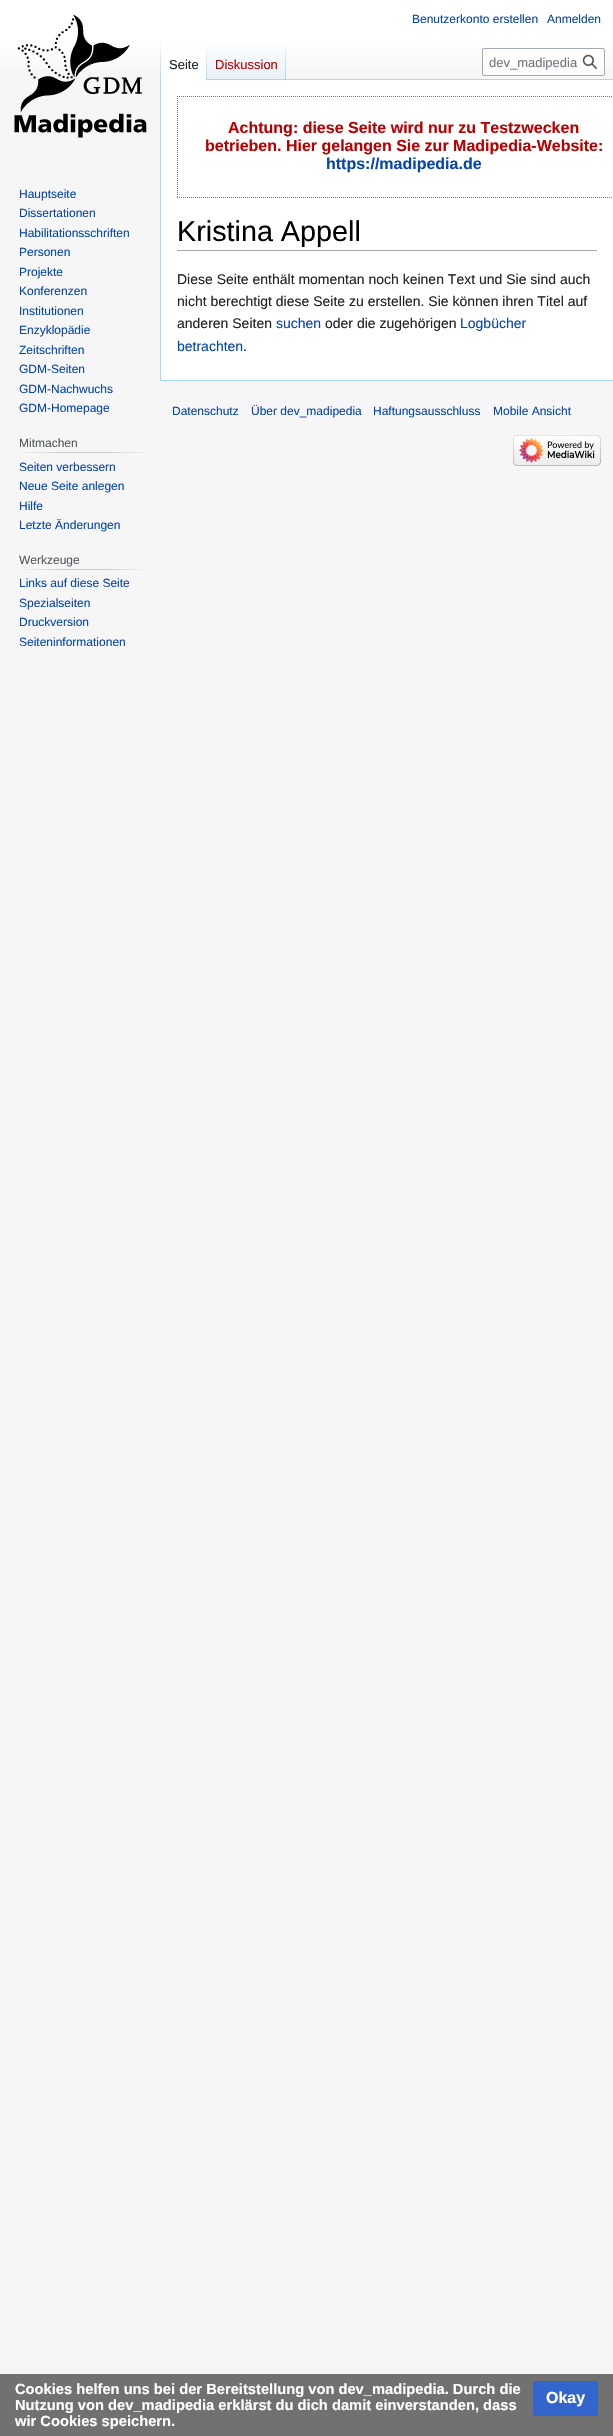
void draw(SkCanvas* canvas) {
	SkPaint paint;
	paint.setAntiAlias(true);
	auto svgPath = [&](const char* data, bool evenOdd = false) {
		SkPath result = *SkParsePath::FromSVGString(data);
		if (evenOdd) result.setFillType(SkPathFillType::kEvenOdd);
		return result;
	};
	canvas->clear(0xfff6f6f6);
	{
		const SkColor colors[] = {0xffffffff, 0xfff6f6f6};
		const float stops[] = {0.5, 1};
		const SkPoint ends[] = {{307, 0}, {307, 80}};
		paint.setShader(SkGradientShader::MakeLinear(ends, colors, stops, 2, SkTileMode::kClamp));
		paint.setAlpha(255);
	}
	canvas->drawRect(SkRect::MakeXYWH(0, 0, 613, 69), paint);
	SkFont f1(fontMgr->matchFamilyStyle("Liberation Sans", SkFontStyle::Normal()), 12);
	f1.setSubpixel(true);
	paint.setShader(nullptr);
	paint.setColor(0xff0645ad);
	canvas->drawString("Benutzerkonto erstellen", 412, 23, f1, paint);
	canvas->drawString("Anmelden", 547, 23, f1, paint);
	paint.setColor(0xffa7d7f9);
	canvas->drawRect(SkRect::MakeXYWH(160, 380, 453, 1), paint);
	canvas->drawRect(SkRect::MakeXYWH(160, 79, 1, 302), paint);
	{
		const SkColor colors[] = {0x00a7d7f9, 0xffa7d7f9};
		const float stops[] = {0, 1};
		const SkPoint ends[] = {{161, 40}, {161, 80}};
		paint.setShader(SkGradientShader::MakeLinear(ends, colors, stops, 2, SkTileMode::kClamp));
		paint.setAlpha(255);
	}
	canvas->drawRect(SkRect::MakeXYWH(160, 40, 1, 40), paint);
	paint.setShader(nullptr);
	paint.setColor(0xffffffff);
	canvas->drawRect(SkRect::MakeXYWH(161, 51, 45, 29), paint);
	{
		const SkColor colors[] = {0xffffffff, 0xffa7d7f9};
		const float stops[] = {0, 1};
		const SkPoint ends[] = {{207, 40}, {207, 80}};
		paint.setShader(SkGradientShader::MakeLinear(ends, colors, stops, 2, SkTileMode::kClamp));
		paint.setAlpha(255);
	}
	canvas->drawRect(SkRect::MakeXYWH(206, 40, 1, 40), paint);
	SkFont f2(fontMgr->matchFamilyStyle("Liberation Sans", SkFontStyle::Normal()), 13);
	f2.setSubpixel(true);
	paint.setShader(nullptr);
	paint.setColor(0xff202122);
	canvas->drawString("Seite", 169, 69, f2, paint);
	{
		const SkColor colors[] = {0xff77c1f6, 0xffe8f2f8, 0xffffffff};
		const float stops[] = {0, 0.03, 1};
		const SkPoint ends[] = {{247, 80}, {247, 40}};
		paint.setShader(SkGradientShader::MakeLinear(ends, colors, stops, 3, SkTileMode::kClamp));
		paint.setAlpha(255);
	}
	canvas->drawRect(SkRect::MakeXYWH(207, 46, 79, 34), paint);
	{
		const SkColor colors[] = {0x00a7d7f9, 0xffa7d7f9};
		const float stops[] = {0, 1};
		const SkPoint ends[] = {{286, 40}, {286, 80}};
		paint.setShader(SkGradientShader::MakeLinear(ends, colors, stops, 2, SkTileMode::kClamp));
		paint.setAlpha(255);
	}
	canvas->drawRect(SkRect::MakeXYWH(285, 40, 1, 40), paint);
	paint.setShader(nullptr);
	paint.setColor(0xffba0000);
	canvas->drawString("Diskussion", 215, 69, f2, paint);
	paint.setColor(0x80ffffff);
	canvas->drawRoundRect(SkRect::MakeXYWH(482.5, 48.5, 122, 27), 1.5, 1.5, paint);
	paint.setStroke(true);
	paint.setStrokeWidth(1);
	paint.setColor(0xffa2a9b1);
	canvas->drawRoundRect(SkRect::MakeXYWH(482.5, 48.5, 122, 27), 1.5, 1.5, paint);
	paint.setStroke(false);
	paint.setColor(0xff72777d);
	canvas->drawString("dev_madipedia", 489, 67, f2, paint);
	canvas->drawImageRect(SkImages::DeferredFromEncodedData(SkData::MakeFromFileName("img1.png")), SkRect::MakeXYWH(582, 54, 15, 15), SkSamplingOptions());
	canvas->drawImageRect(SkImages::DeferredFromEncodedData(SkData::MakeFromFileName("img2.png")), SkRect::MakeXYWH(14, 14, 133, 124), SkSamplingOptions());
	paint.setColor(0xff0645ad);
	canvas->drawString("Hauptseite", 19, 198, f1, paint);
	canvas->drawString("Dissertationen", 19, 217, f1, paint);
	canvas->drawString("Habilitationsschriften", 19, 237, f1, paint);
	canvas->drawString("Personen", 19, 256, f1, paint);
	canvas->drawString("Projekte", 19, 276, f1, paint);
	canvas->drawString("Konferenzen", 19, 295, f1, paint);
	canvas->drawString("Institutionen", 19, 315, f1, paint);
	canvas->drawString("Enzyklopädie", 19, 334, f1, paint);
	canvas->drawString("Zeitschriften", 19, 354, f1, paint);
	canvas->drawString("GDM-Seiten", 19, 373, f1, paint);
	canvas->drawString("GDM-Nachwuchs", 19, 393, f1, paint);
	canvas->drawString("GDM-Homepage", 19, 412, f1, paint);
	{
		const SkColor colors[] = {0xfff6f6f6, 0xffc8ccd1, 0xffc8ccd1, 0xfff6f6f6};
		const float stops[] = {0, 0.33, 0.66, 1};
		const SkPoint ends[] = {{19, 453}, {150, 453}};
		paint.setShader(SkGradientShader::MakeLinear(ends, colors, stops, 4, SkTileMode::kClamp));
		paint.setAlpha(255);
	}
	canvas->drawRect(SkRect::MakeXYWH(19, 452, 131, 1), paint);
	paint.setShader(nullptr);
	paint.setColor(0xff54595d);
	canvas->drawString("Mitmachen", 19, 447, f1, paint);
	paint.setColor(0xff0645ad);
	canvas->drawString("Seiten verbessern", 19, 471, f1, paint);
	canvas->drawString("Neue Seite anlegen", 19, 490, f1, paint);
	canvas->drawString("Hilfe", 19, 510, f1, paint);
	canvas->drawString("Letzte Änderungen", 19, 529, f1, paint);
	{
		const SkColor colors[] = {0xfff6f6f6, 0xffc8ccd1, 0xffc8ccd1, 0xfff6f6f6};
		const float stops[] = {0, 0.33, 0.66, 1};
		const SkPoint ends[] = {{19, 570}, {150, 570}};
		paint.setShader(SkGradientShader::MakeLinear(ends, colors, stops, 4, SkTileMode::kClamp));
		paint.setAlpha(255);
	}
	canvas->drawRect(SkRect::MakeXYWH(19, 569, 131, 1), paint);
	paint.setShader(nullptr);
	paint.setColor(0xff54595d);
	canvas->drawString("Werkzeuge", 19, 564, f1, paint);
	paint.setColor(0xff0645ad);
	canvas->drawString("Links auf diese Seite", 19, 587, f1, paint);
	canvas->drawString("Spezialseiten", 19, 607, f1, paint);
	canvas->drawString("Druckversion", 19, 626, f1, paint);
	canvas->drawString("Seiteninformationen", 19, 646, f1, paint);
	paint.setColor(0xffffffff);
	canvas->drawRect(SkRect::MakeXYWH(161, 80, 452, 300), paint);
	paint.setColor(0xffa7d7f9);
	canvas->drawRect(SkRect::MakeXYWH(286, 79, 327, 1), paint);
	paint.setStroke(true);
	paint.setColor(0xff777777);
	paint.setPathEffect(SkDashPathEffect::Make({{1, 1}}, 0));
	canvas->drawPath(svgPath("M177 96.5H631"), paint);
	paint.setPathEffect(nullptr);
	paint.setPathEffect(SkDashPathEffect::Make({{1, 1}}, 0));
	canvas->drawPath(svgPath("M177 197.5H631"), paint);
	paint.setPathEffect(nullptr);
	paint.setPathEffect(SkDashPathEffect::Make({{1, 1}}, 0));
	canvas->drawPath(svgPath("M177.5 96V198"), paint);
	paint.setPathEffect(nullptr);
	SkFont f3(fontMgr->matchFamilyStyle("Liberation Sans", SkFontStyle::Bold()), 16);
	f3.setSubpixel(true);
	paint.setStroke(false);
	paint.setColor(0xffba0000);
	canvas->drawString("Achtung: diese Seite wird nur zu Testzwecken", 228, 133, f3, paint);
	canvas->drawString("betrieben. Hier gelangen Sie zur Madipedia-Website:", 205, 151, f3, paint);
	paint.setColor(0xff0645ad);
	canvas->drawString("https://madipedia.de", 326, 169, f3, paint);
	paint.setColor(0xffa2a9b1);
	canvas->drawRect(SkRect::MakeXYWH(177, 250, 420, 1), paint);
	SkFont f4(fontMgr->matchFamilyStyle("Liberation Sans", SkFontStyle::Normal()), 28.75);
	f4.setSubpixel(true);
	paint.setColor(0xff000000);
	canvas->drawString("Kristina Appell", 177, 241, f4, paint);
	SkFont f5(fontMgr->matchFamilyStyle("Liberation Sans", SkFontStyle::Normal()), 14);
	f5.setSubpixel(true);
	paint.setColor(0xff202122);
	canvas->drawString("Diese Seite enthält momentan noch keinen Text und Sie sind auch", 177, 284, f5, paint);
	canvas->drawString("nicht berechtigt diese Seite zu erstellen. Sie können ihren Titel auf", 177, 306, f5, paint);
	canvas->drawString("anderen Seiten", 177, 328, f5, paint);
	paint.setColor(0xff0645ad);
	canvas->drawString("suchen", 276, 328, f5, paint);
	paint.setColor(0xff202122);
	canvas->drawString("oder die zugehörigen", 325, 328, f5, paint);
	paint.setColor(0xff0645ad);
	canvas->drawString("Logbücher", 460, 328, f5, paint);
	canvas->drawString("betrachten", 177, 351, f5, paint);
	paint.setColor(0xff202122);
	canvas->drawString(".", 243, 351, f5, paint);
	paint.setColor(0xff0645ad);
	canvas->drawString("Datenschutz", 172, 415, f1, paint);
	canvas->drawString("Über dev_madipedia", 251, 415, f1, paint);
	canvas->drawString("Haftungsausschluss", 373, 415, f1, paint);
	canvas->drawString("Mobile Ansicht", 493, 415, f1, paint);
	canvas->drawImageRect(SkImages::DeferredFromEncodedData(SkData::MakeFromFileName("img3.png")), SkRect::MakeXYWH(513, 435, 88, 31), SkSamplingOptions());
	paint.setColor(0xff717171);
	canvas->drawRect(SkRect::MakeXYWH(0, 2374, 613, 62), paint);
	SkFont f6(fontMgr->matchFamilyStyle("Liberation Sans", SkFontStyle::Bold()), 14.7);
	f6.setSubpixel(true);
	paint.setColor(0xffffffff);
	canvas->drawString("Cookies helfen uns bei der Bereitstellung von dev_madipedia. Durch die", 15, 2394, f6, paint);
	canvas->drawString("Nutzung von dev_madipedia erklärst du dich damit einverstanden, dass", 15, 2410, f6, paint);
	canvas->drawString("wir Cookies speichern.", 15, 2426, f6, paint);
	paint.setColor(0xff3366cc);
	canvas->drawRoundRect(SkRect::MakeXYWH(533.5, 2381.5, 64, 34), 1.5, 1.5, paint);
	paint.setStroke(true);
	canvas->drawRoundRect(SkRect::MakeXYWH(533.5, 2381.5, 64, 34), 1.5, 1.5, paint);
	paint.setStroke(false);
	paint.setColor(0xffffffff);
	canvas->drawString("Okay", 546, 2403, f3, paint);
}
